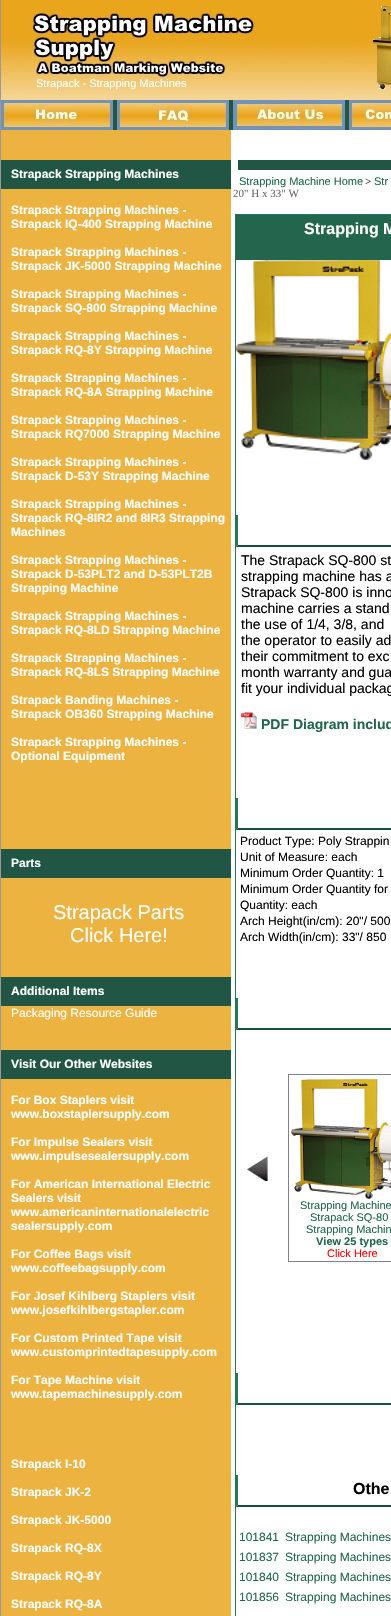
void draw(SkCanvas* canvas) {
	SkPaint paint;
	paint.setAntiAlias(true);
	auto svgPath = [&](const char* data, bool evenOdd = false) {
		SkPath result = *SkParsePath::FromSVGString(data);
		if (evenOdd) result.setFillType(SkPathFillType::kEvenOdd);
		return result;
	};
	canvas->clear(0xffffffff);
	paint.setColor(0xff999999);
	canvas->drawRect(SkRect::MakeXYWH(0, 0, 1, 1616), paint);
	canvas->drawImageRect(SkImages::DeferredFromEncodedData(SkData::MakeFromFileName("img1.png")), SkRect::MakeXYWH(1, 0, 390, 100), SkSamplingOptions());
	SkFont f1(fontMgr->matchFamilyStyle("Liberation Sans", SkFontStyle::Normal()), 11);
	f1.setSubpixel(true);
	paint.setColor(0xffffffff);
	canvas->drawString("Strapack - Strapping Machines", 36, 87, f1, paint);
	paint.setColor(0xff205643);
	canvas->drawRect(SkRect::MakeXYWH(113, 100, 236, 30), paint);
	canvas->drawImageRect(SkImages::DeferredFromEncodedData(SkData::MakeFromFileName("img2.png")), SkRect::MakeXYWH(1, 100, 112, 30), SkSamplingOptions());
	canvas->drawImageRect(SkImages::DeferredFromEncodedData(SkData::MakeFromFileName("img3.png")), SkRect::MakeXYWH(117, 100, 112, 30), SkSamplingOptions());
	canvas->drawImageRect(SkImages::DeferredFromEncodedData(SkData::MakeFromFileName("img4.png")), SkRect::MakeXYWH(233, 100, 112, 30), SkSamplingOptions());
	canvas->drawImageRect(SkImages::DeferredFromEncodedData(SkData::MakeFromFileName("img5.png")), SkRect::MakeXYWH(349, 100, 42, 30), SkSamplingOptions());
	paint.setColor(0xffedb340);
	canvas->drawRect(SkRect::MakeXYWH(1, 130, 230, 1486), paint);
	paint.setColor(0xff205643);
	canvas->drawRect(SkRect::MakeXYWH(1, 160, 230, 29), paint);
	SkFont f2(fontMgr->matchFamilyStyle("Liberation Sans", SkFontStyle::Bold()), 12);
	f2.setSubpixel(true);
	paint.setColor(0xffffffff);
	canvas->drawString("Strapack Strapping Machines", 11, 178, f2, paint);
	canvas->drawString("Strapack Strapping Machines -", 11, 214, f2, paint);
	canvas->drawString("Strapack IQ-400 Strapping Machine", 11, 228, f2, paint);
	canvas->drawString("Strapack Strapping Machines -", 11, 256, f2, paint);
	canvas->drawString("Strapack JK-5000 Strapping Machine", 11, 270, f2, paint);
	canvas->drawString("Strapack Strapping Machines -", 11, 298, f2, paint);
	canvas->drawString("Strapack SQ-800 Strapping Machine", 11, 312, f2, paint);
	canvas->drawString("Strapack Strapping Machines -", 11, 340, f2, paint);
	canvas->drawString("Strapack RQ-8Y Strapping Machine", 11, 354, f2, paint);
	canvas->drawString("Strapack Strapping Machines -", 11, 382, f2, paint);
	canvas->drawString("Strapack RQ-8A Strapping Machine", 11, 396, f2, paint);
	canvas->drawString("Strapack Strapping Machines -", 11, 424, f2, paint);
	canvas->drawString("Strapack RQ7000 Strapping Machine", 11, 438, f2, paint);
	canvas->drawString("Strapack Strapping Machines -", 11, 466, f2, paint);
	canvas->drawString("Strapack D-53Y Strapping Machine", 11, 480, f2, paint);
	canvas->drawString("Strapack Strapping Machines -", 11, 508, f2, paint);
	canvas->drawString("Strapack RQ-8IR2 and 8IR3 Strapping", 11, 522, f2, paint);
	canvas->drawString("Machines", 11, 536, f2, paint);
	canvas->drawString("Strapack Strapping Machines -", 11, 564, f2, paint);
	canvas->drawString("Strapack D-53PLT2 and D-53PLT2B", 11, 578, f2, paint);
	canvas->drawString("Strapping Machine", 11, 592, f2, paint);
	canvas->drawString("Strapack Strapping Machines -", 11, 620, f2, paint);
	canvas->drawString("Strapack RQ-8LD Strapping Machine", 11, 634, f2, paint);
	canvas->drawString("Strapack Strapping Machines -", 11, 662, f2, paint);
	canvas->drawString("Strapack RQ-8LS Strapping Machine", 11, 676, f2, paint);
	canvas->drawString("Strapack Banding Machines -", 11, 704, f2, paint);
	canvas->drawString("Strapack OB360 Strapping Machine", 11, 718, f2, paint);
	canvas->drawString("Strapack Strapping Machines -", 11, 746, f2, paint);
	canvas->drawString("Optional Equipment", 11, 760, f2, paint);
	paint.setColor(0xff205643);
	canvas->drawRect(SkRect::MakeXYWH(1, 849, 230, 29), paint);
	paint.setColor(0xffffffff);
	canvas->drawString("Parts", 11, 867, f2, paint);
	SkFont f3(fontMgr->matchFamilyStyle("Liberation Sans", SkFontStyle::Normal()), 20);
	f3.setSubpixel(true);
	canvas->drawString("Strapack Parts", 53, 919, f3, paint);
	canvas->drawString("Click Here!", 70, 942, f3, paint);
	paint.setColor(0xff205643);
	canvas->drawRect(SkRect::MakeXYWH(1, 977, 230, 29), paint);
	paint.setColor(0xffffffff);
	canvas->drawString("Additional Items", 11, 995, f2, paint);
	SkFont f4(fontMgr->matchFamilyStyle("Liberation Sans", SkFontStyle::Normal()), 12);
	f4.setSubpixel(true);
	canvas->drawString("Packaging Resource Guide", 11, 1017, f4, paint);
	paint.setColor(0xff205643);
	canvas->drawRect(SkRect::MakeXYWH(1, 1050, 230, 29), paint);
	paint.setColor(0xffffffff);
	canvas->drawString("Visit Our Other Websites", 11, 1068, f2, paint);
	canvas->drawString("For Box Staplers visit", 11, 1104, f2, paint);
	canvas->drawString("www.boxstaplersupply.com", 11, 1118, f2, paint);
	canvas->drawString("For Impulse Sealers visit", 11, 1146, f2, paint);
	canvas->drawString("www.impulsesealersupply.com", 11, 1160, f2, paint);
	canvas->drawString("For American International Electric", 11, 1188, f2, paint);
	canvas->drawString("Sealers visit", 11, 1202, f2, paint);
	canvas->drawString("www.americaninternationalelectric", 11, 1216, f2, paint);
	canvas->drawString("sealersupply.com", 11, 1230, f2, paint);
	canvas->drawString("For Coffee Bags visit", 11, 1258, f2, paint);
	canvas->drawString("www.coffeebagsupply.com", 11, 1272, f2, paint);
	canvas->drawString("For Josef Kihlberg Staplers visit", 11, 1300, f2, paint);
	canvas->drawString("www.josefkihlbergstapler.com", 11, 1314, f2, paint);
	canvas->drawString("For Custom Printed Tape visit", 11, 1342, f2, paint);
	canvas->drawString("www.customprintedtapesupply.com", 11, 1356, f2, paint);
	canvas->drawString("For Tape Machine visit", 11, 1384, f2, paint);
	canvas->drawString("www.tapemachinesupply.com", 11, 1398, f2, paint);
	canvas->drawString("Strapack I-10", 11, 1468, f2, paint);
	canvas->drawString("Strapack JK-2", 11, 1496, f2, paint);
	canvas->drawString("Strapack JK-5000", 11, 1524, f2, paint);
	canvas->drawString("Strapack RQ-8X", 11, 1552, f2, paint);
	canvas->drawString("Strapack RQ-8Y", 11, 1580, f2, paint);
	canvas->drawString("Strapack RQ-8A", 11, 1608, f2, paint);
	paint.setColor(0xff205643);
	canvas->drawRect(SkRect::MakeXYWH(238, 160, 153, 10), paint);
	paint.setColor(0xff23664e);
	canvas->drawString("Strapping Machine Home", 239, 185, f1, paint);
	SkFont f5(fontMgr->matchFamilyStyle("Liberation Serif", SkFontStyle::Normal()), 11);
	f5.setSubpixel(true);
	paint.setColor(0xff000000);
	canvas->drawString(">", 365, 185, f5, paint);
	paint.setColor(0xff23664e);
	canvas->drawString("Str", 374, 185, f1, paint);
	paint.setColor(0xff6e6868);
	canvas->drawString("20\" H x 33\" W", 233, 197, f5, paint);
	paint.setStroke(true);
	paint.setStrokeWidth(1);
	paint.setColor(0xff267559);
	canvas->drawRect(SkRect::MakeXYWH(235.5, 214.5, 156, 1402), paint);
	paint.setStroke(false);
	paint.setColor(0xff23664e);
	canvas->drawRect(SkRect::MakeXYWH(236, 215, 155, 45), paint);
	SkFont f6(fontMgr->matchFamilyStyle("Liberation Sans", SkFontStyle::Bold()), 16);
	f6.setSubpixel(true);
	paint.setColor(0xffffffff);
	canvas->drawString("Strapping M", 304, 234, f6, paint);
	canvas->drawImageRect(SkImages::DeferredFromEncodedData(SkData::MakeFromFileName("img6.png")), SkRect::MakeXYWH(236, 260, 155, 200), SkSamplingOptions());
	paint.setColor(0xff194e3b);
	canvas->drawPath(svgPath("M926 547H236L238 545H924Z"), paint);
	paint.setColor(0xff267559);
	canvas->drawPath(svgPath("M236 547V515H238V545Z"), paint);
	SkFont f7(fontMgr->matchFamilyStyle("Liberation Sans", SkFontStyle::Normal()), 14);
	f7.setSubpixel(true);
	paint.setColor(0xff000000);
	canvas->drawString("The Strapack SQ-800 st", 241, 565, f7, paint);
	canvas->drawString("strapping machine has a", 241, 581, f7, paint);
	canvas->drawString("Strapack SQ-800 is inno", 241, 597, f7, paint);
	canvas->drawString("machine carries a stand", 241, 613, f7, paint);
	canvas->drawString("the use of 1/4, 3/8, and", 241, 629, f7, paint);
	canvas->drawString("the operator to easily ad", 241, 645, f7, paint);
	canvas->drawString("their commitment to exc", 241, 661, f7, paint);
	canvas->drawString("month warranty and gua", 241, 677, f7, paint);
	canvas->drawString("fit your individual packag", 241, 693, f7, paint);
	canvas->drawImageRect(SkImages::DeferredFromEncodedData(SkData::MakeFromFileName("img7.png")), SkRect::MakeXYWH(241, 712, 16, 17), SkSamplingOptions());
	SkFont f8(fontMgr->matchFamilyStyle("Liberation Sans", SkFontStyle::Bold()), 14);
	f8.setSubpixel(true);
	paint.setColor(0xff23664e);
	canvas->drawString("PDF Diagram includ", 261, 729, f8, paint);
	paint.setColor(0xff194e3b);
	canvas->drawPath(svgPath("M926 830H236L238 828H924Z"), paint);
	paint.setColor(0xff267559);
	canvas->drawPath(svgPath("M236 830V798H238V828Z"), paint);
	paint.setColor(0xff000000);
	canvas->drawString("Product Type: Poly Strappin", 240, 845, f4, paint);
	canvas->drawString("Unit of Measure: each", 240, 861, f4, paint);
	canvas->drawString("Minimum Order Quantity: 1", 240, 877, f4, paint);
	canvas->drawString("Minimum Order Quantity for", 240, 893, f4, paint);
	canvas->drawString("Quantity: each", 240, 909, f4, paint);
	canvas->drawString("Arch Height(in/cm): 20\"/ 500", 240, 925, f4, paint);
	canvas->drawString("Arch Width(in/cm): 33\"/ 850", 240, 941, f4, paint);
	paint.setColor(0xff194e3b);
	canvas->drawPath(svgPath("M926 1030H236L238 1028H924Z"), paint);
	paint.setColor(0xff267559);
	canvas->drawPath(svgPath("M236 1030V998H238V1028Z"), paint);
	canvas->drawImageRect(SkImages::DeferredFromEncodedData(SkData::MakeFromFileName("img8.png")), SkRect::MakeXYWH(247, 1155, 22, 26), SkSamplingOptions());
	paint.setStroke(true);
	paint.setColor(0xff808090);
	canvas->drawRect(SkRect::MakeXYWH(288.5, 1074.5, 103, 187), paint);
	canvas->drawImageRect(SkImages::DeferredFromEncodedData(SkData::MakeFromFileName("img9.png")), SkRect::MakeXYWH(291, 1079, 100, 120), SkSamplingOptions());
	paint.setStroke(false);
	paint.setColor(0xff23664e);
	canvas->drawString("Strapping Machine", 300, 1209, f1, paint);
	canvas->drawString("Strapack SQ-80", 310, 1221, f1, paint);
	canvas->drawString("Strapping Machin", 306, 1233, f1, paint);
	SkFont f9(fontMgr->matchFamilyStyle("Liberation Sans", SkFontStyle::Bold()), 11);
	f9.setSubpixel(true);
	canvas->drawString("View 25 types", 316, 1245, f9, paint);
	paint.setColor(0xffff0000);
	canvas->drawString("Click Here", 327, 1257, f1, paint);
	paint.setColor(0xff194e3b);
	canvas->drawPath(svgPath("M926 1405H236L238 1403H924Z"), paint);
	paint.setColor(0xff267559);
	canvas->drawPath(svgPath("M236 1405V1373H238V1403Z"), paint);
	paint.setColor(0xff194e3b);
	canvas->drawPath(svgPath("M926 1507H236L238 1505H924Z"), paint);
	paint.setColor(0xff267559);
	canvas->drawPath(svgPath("M236 1507V1475H238V1505Z"), paint);
	paint.setColor(0xff000000);
	canvas->drawString("Othe", 353, 1494, f6, paint);
	paint.setColor(0xff23664e);
	canvas->drawString("101841", 239, 1541, f4, paint);
	canvas->drawString("Strapping Machines", 285, 1541, f4, paint);
	canvas->drawString("101837", 239, 1561, f4, paint);
	canvas->drawString("Strapping Machines", 285, 1561, f4, paint);
	canvas->drawString("101840", 239, 1581, f4, paint);
	canvas->drawString("Strapping Machines", 285, 1581, f4, paint);
	canvas->drawString("101856", 239, 1601, f4, paint);
	canvas->drawString("Strapping Machines", 285, 1601, f4, paint);
}
